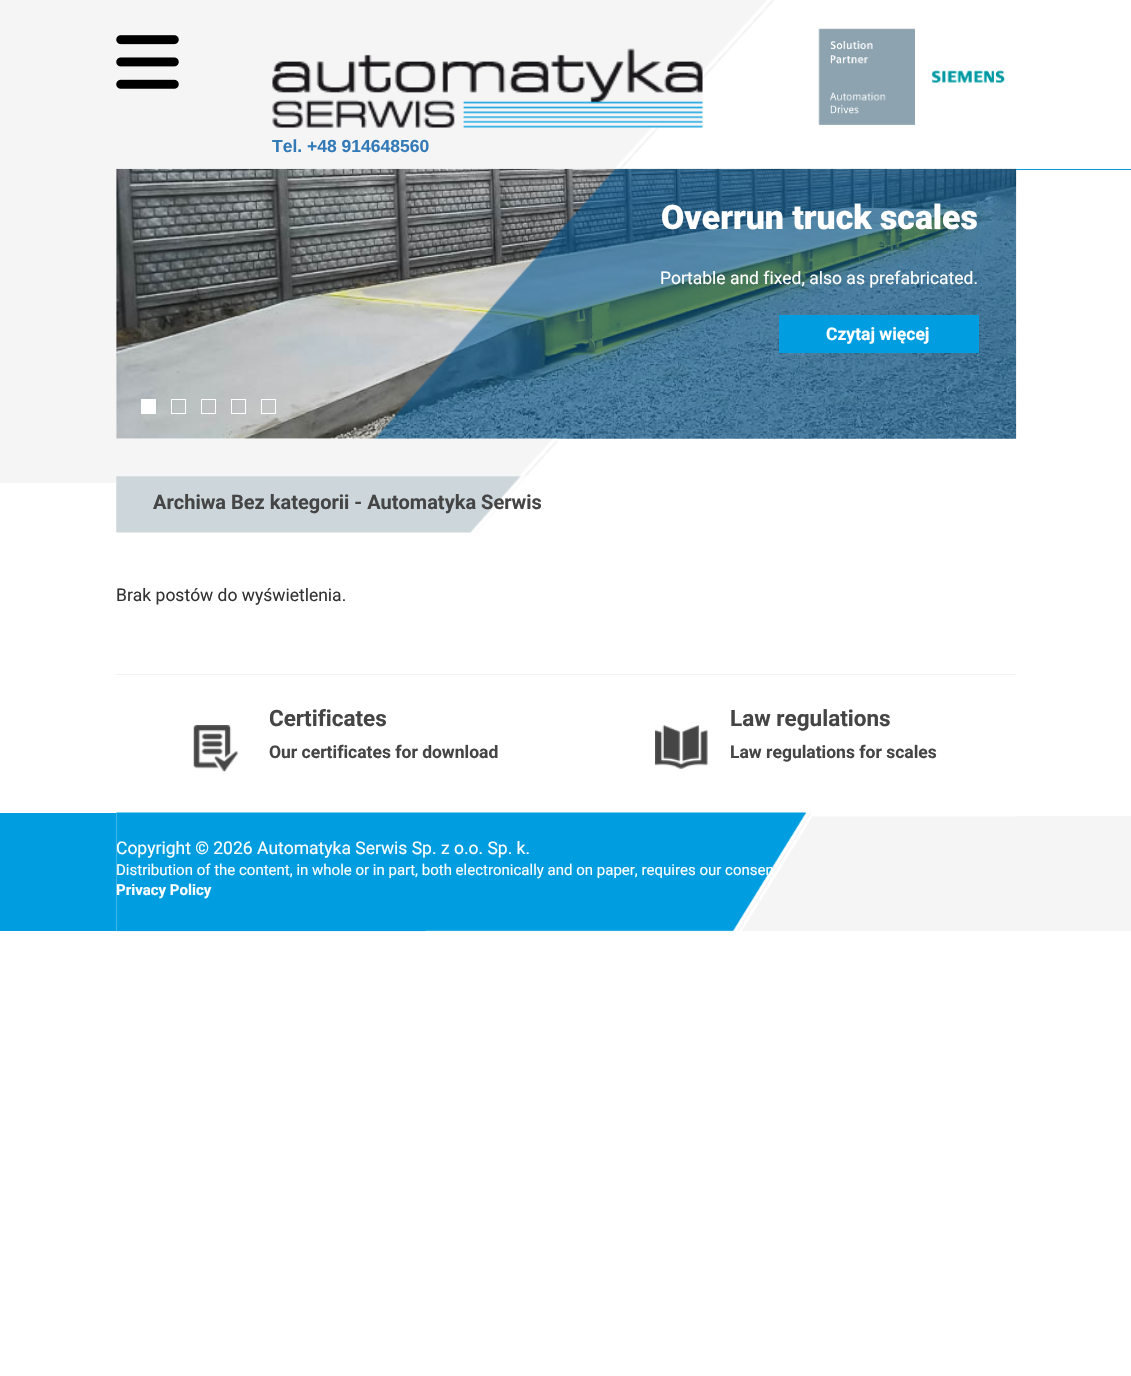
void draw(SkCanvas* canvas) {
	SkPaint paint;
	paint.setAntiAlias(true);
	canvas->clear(0xffffffff);
	paint.setColor(0xfff5f5f5);
	canvas->drawRect(SkRect::MakeXYWH(0, 0, 98, 439), paint);
	canvas->drawImageRect(SkImages::DeferredFromEncodedData(SkData::MakeFromFileName("img1.png")), SkRect::MakeXYWH(98, 0, 937, 482), SkSamplingOptions());
	canvas->drawImageRect(SkImages::DeferredFromEncodedData(SkData::MakeFromFileName("img2.png")), SkRect::MakeXYWH(116, 35, 63, 54), SkSamplingOptions());
	canvas->drawImageRect(SkImages::DeferredFromEncodedData(SkData::MakeFromFileName("img3.png")), SkRect::MakeXYWH(818, 28, 188, 97), SkSamplingOptions());
	canvas->drawImageRect(SkImages::DeferredFromEncodedData(SkData::MakeFromFileName("img4.png")), SkRect::MakeXYWH(272, 48, 431, 80), SkSamplingOptions());
	SkFont f1(fontMgr->matchFamilyStyle("Liberation Sans", SkFontStyle::Bold()), 17.5);
	f1.setSubpixel(true);
	paint.setColor(0xff337ab7);
	canvas->drawString("Tel. +48 914648560", 272, 152, f1, paint);
	canvas->drawImageRect(SkImages::DeferredFromEncodedData(SkData::MakeFromFileName("img5.png")), SkRect::MakeXYWH(116, 168, 901, 271), SkSamplingOptions());
	canvas->drawImageRect(SkImages::DeferredFromEncodedData(SkData::MakeFromFileName("img6.png")), SkRect::MakeXYWH(374, 168, 643, 271), SkSamplingOptions());
	paint.setColor(0xff009ee0);
	canvas->drawRect(SkRect::MakeXYWH(1016, 169, 115, 1), paint);
	SkFont f2(fontMgr->matchFamilyStyle("Roboto", SkFontStyle(900, SkFontStyle::kNormal_Width, SkFontStyle::kUpright_Slant)), 33.75);
	f2.setSubpixel(true);
	paint.setColor(0xffffffff);
	canvas->drawString("Overrun truck scales", 661, 229, f2, paint);
	SkFont f3(fontMgr->matchFamilyStyle("Roboto", SkFontStyle::Normal()), 17.5);
	f3.setSubpixel(true);
	canvas->drawString("Portable and fixed, also as prefabricated.", 660, 284, f3, paint);
	paint.setColor(0xff009ee0);
	canvas->drawRect(SkRect::MakeXYWH(779, 315, 200, 38), paint);
	SkFont f4(fontMgr->matchFamilyStyle("Roboto", SkFontStyle::Bold()), 17.5);
	f4.setSubpixel(true);
	paint.setColor(0xffffffff);
	canvas->drawString("Czytaj więcej", 826, 340, f4, paint);
	canvas->drawRect(SkRect::MakeXYWH(141, 399, 15, 15), paint);
	paint.setStroke(true);
	paint.setStrokeWidth(1);
	canvas->drawRect(SkRect::MakeXYWH(171.5, 399.5, 14, 14), paint);
	canvas->drawRect(SkRect::MakeXYWH(201.5, 399.5, 14, 14), paint);
	canvas->drawRect(SkRect::MakeXYWH(231.5, 399.5, 14, 14), paint);
	canvas->drawRect(SkRect::MakeXYWH(261.5, 399.5, 14, 14), paint);
	paint.setStroke(false);
	paint.setColor(0xfff5f5f5);
	canvas->drawRect(SkRect::MakeXYWH(0, 439, 116, 44), paint);
	canvas->drawImageRect(SkImages::DeferredFromEncodedData(SkData::MakeFromFileName("img7.png")), SkRect::MakeXYWH(117, 438, 441, 39), SkSamplingOptions());
	canvas->drawImageRect(SkImages::DeferredFromEncodedData(SkData::MakeFromFileName("img8.png")), SkRect::MakeXYWH(116, 476, 409, 57), SkSamplingOptions());
	SkFont f5(fontMgr->matchFamilyStyle("Roboto", SkFontStyle::Bold()), 20);
	f5.setSubpixel(true);
	paint.setColor(0xff454545);
	canvas->drawString("Archiwa Bez kategorii - Automatyka Serwis", 153, 509, f5, paint);
	paint.setColor(0xff333333);
	canvas->drawString("Brak postów do wyświetlenia.", 116, 601, f3, paint);
	paint.setColor(0xfff4f0ef);
	canvas->drawRect(SkRect::MakeXYWH(116, 674, 900, 1), paint);
	SkFont f6(fontMgr->matchFamilyStyle("Roboto", SkFontStyle::Bold()), 22.5);
	f6.setSubpixel(true);
	paint.setColor(0xff454545);
	canvas->drawString("Certificates", 269, 726, f6, paint);
	canvas->drawImageRect(SkImages::DeferredFromEncodedData(SkData::MakeFromFileName("img9.png")), SkRect::MakeXYWH(193, 725, 45, 47), SkSamplingOptions());
	canvas->drawString("Our certificates for download", 269, 758, f4, paint);
	canvas->drawString("Law regulations", 730, 726, f6, paint);
	canvas->drawImageRect(SkImages::DeferredFromEncodedData(SkData::MakeFromFileName("img10.png")), SkRect::MakeXYWH(655, 725, 53, 44), SkSamplingOptions());
	canvas->drawString("Law regulations for scales", 730, 758, f4, paint);
	paint.setColor(0xff009ee0);
	canvas->drawRect(SkRect::MakeXYWH(0, 813, 116, 118), paint);
	canvas->drawImageRect(SkImages::DeferredFromEncodedData(SkData::MakeFromFileName("img11.png")), SkRect::MakeXYWH(116, 812, 900, 120), SkSamplingOptions());
	paint.setColor(0xfff5f5f5);
	canvas->drawRect(SkRect::MakeXYWH(1016, 816, 115, 115), paint);
	paint.setColor(0xffffffff);
	canvas->drawString("Copyright © 2026 Automatyka Serwis Sp. z o.o. Sp. k.", 116, 854, f3, paint);
	SkFont f7(fontMgr->matchFamilyStyle("Roboto", SkFontStyle::Normal()), 15);
	f7.setSubpixel(true);
	canvas->drawString("Distribution of the content, in whole or in part, both electronically and on paper, requires our consen", 116, 875, f7, paint);
	SkFont f8(fontMgr->matchFamilyStyle("Roboto", SkFontStyle::Bold()), 15);
	f8.setSubpixel(true);
	canvas->drawString("Privacy Policy", 116, 895, f8, paint);
}
